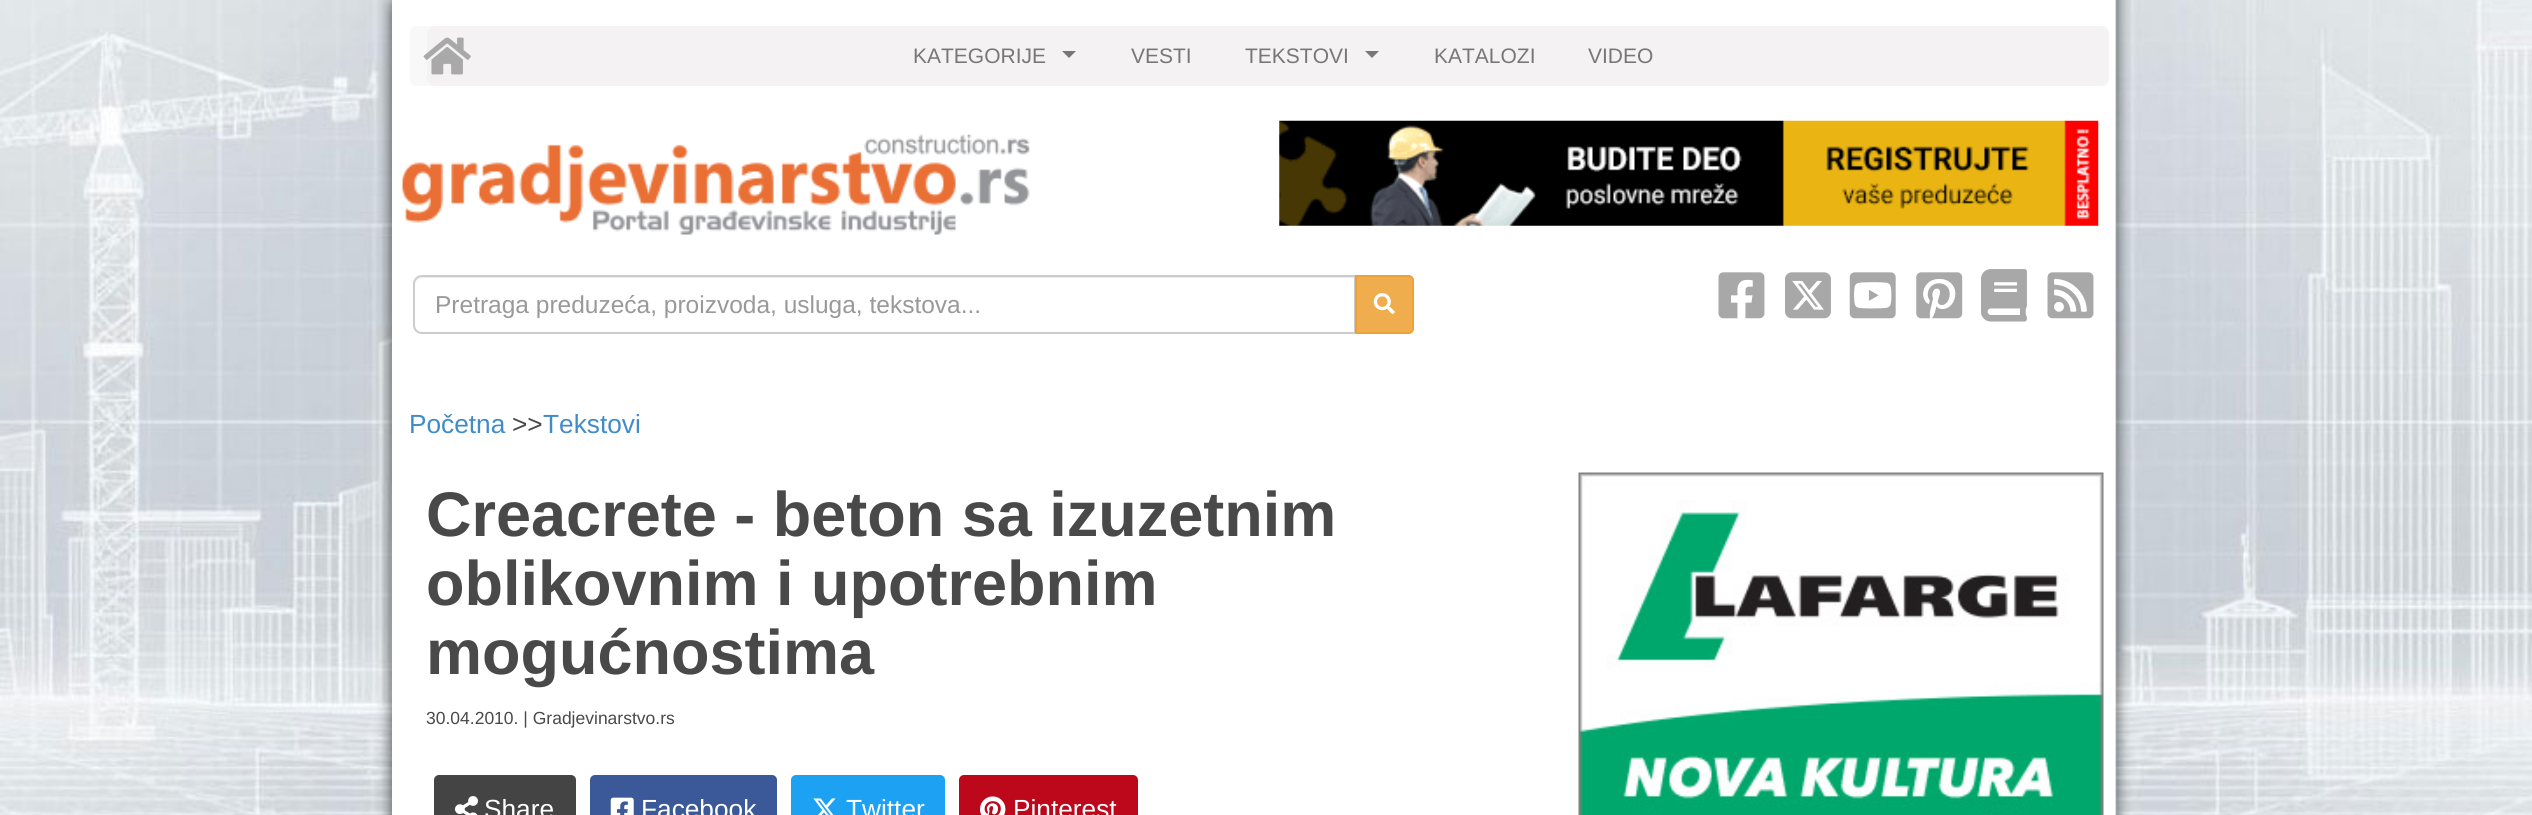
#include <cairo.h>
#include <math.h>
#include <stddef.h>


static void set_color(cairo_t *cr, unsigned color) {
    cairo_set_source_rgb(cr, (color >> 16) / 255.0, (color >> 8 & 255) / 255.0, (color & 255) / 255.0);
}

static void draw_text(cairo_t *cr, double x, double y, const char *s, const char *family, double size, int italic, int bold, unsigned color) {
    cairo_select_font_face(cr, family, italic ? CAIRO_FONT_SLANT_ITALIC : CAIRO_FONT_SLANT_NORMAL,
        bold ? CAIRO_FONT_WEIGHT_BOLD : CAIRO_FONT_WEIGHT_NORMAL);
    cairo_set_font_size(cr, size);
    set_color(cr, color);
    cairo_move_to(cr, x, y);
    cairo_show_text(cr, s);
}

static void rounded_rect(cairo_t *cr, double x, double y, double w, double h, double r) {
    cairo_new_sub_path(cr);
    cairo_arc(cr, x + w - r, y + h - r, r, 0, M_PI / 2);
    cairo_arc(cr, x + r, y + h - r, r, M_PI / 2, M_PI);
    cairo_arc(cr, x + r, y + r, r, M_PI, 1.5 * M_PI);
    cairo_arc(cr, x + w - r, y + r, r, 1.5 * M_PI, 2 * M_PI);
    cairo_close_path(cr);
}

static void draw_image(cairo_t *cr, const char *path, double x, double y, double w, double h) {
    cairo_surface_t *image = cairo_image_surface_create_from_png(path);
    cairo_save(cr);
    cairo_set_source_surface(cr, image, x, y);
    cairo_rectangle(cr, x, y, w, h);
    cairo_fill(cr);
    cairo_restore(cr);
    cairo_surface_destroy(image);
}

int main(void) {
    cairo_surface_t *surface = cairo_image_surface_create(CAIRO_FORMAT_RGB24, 2532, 815);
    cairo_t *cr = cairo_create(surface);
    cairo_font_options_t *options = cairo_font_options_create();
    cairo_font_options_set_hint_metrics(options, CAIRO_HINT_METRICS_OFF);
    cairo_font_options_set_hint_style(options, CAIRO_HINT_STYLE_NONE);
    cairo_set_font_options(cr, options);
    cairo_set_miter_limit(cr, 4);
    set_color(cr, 0xFFFFFF);
    cairo_paint(cr);
    draw_image(cr, "assets/img1.png", 0, 0, 392, 815);
    set_color(cr, 0xF8F8F8);
    rounded_rect(cr, 410, 26, 1699, 60, 7);
    cairo_fill(cr);
    set_color(cr, 0xF4F2F2);
    rounded_rect(cr, 427, 26, 1682, 60, 9);
    cairo_fill(cr);
    draw_image(cr, "assets/img2.png", 423, 37, 48, 38);
    draw_text(cr, 913, 63, "KATEGORIJE", "Liberation Sans", 21, 0, 0, 0x777777);
    cairo_new_path(cr);
    cairo_move_to(cr, 1062, 51);
    cairo_line_to(cr, 1076, 51);
    cairo_line_to(cr, 1069, 58);
    cairo_close_path(cr);
    cairo_fill(cr);
    draw_text(cr, 1131, 63, "VESTI", "Liberation Sans", 21, 0, 0, 0x777777);
    draw_text(cr, 1245, 63, "TEKSTOVI", "Liberation Sans", 21, 0, 0, 0x777777);
    cairo_new_path(cr);
    cairo_move_to(cr, 1365, 51);
    cairo_line_to(cr, 1379, 51);
    cairo_line_to(cr, 1372, 58);
    cairo_close_path(cr);
    cairo_fill(cr);
    draw_text(cr, 1434, 63, "KATALOZI", "Liberation Sans", 21, 0, 0, 0x777777);
    draw_text(cr, 1588, 63, "VIDEO", "Liberation Sans", 21, 0, 0, 0x777777);
    draw_image(cr, "assets/img3.png", 402, 134, 628, 101);
    draw_image(cr, "assets/img4.png", 1279, 120, 820, 106);
    set_color(cr, 0xECECEC);
    cairo_new_path(cr);
    cairo_move_to(cr, 422, 278);
    cairo_line_to(cr, 1354, 278);
    cairo_line_to(cr, 1354, 333);
    cairo_line_to(cr, 1355, 333);
    cairo_line_to(cr, 1355, 277);
    cairo_line_to(cr, 422, 277);
    cairo_curve_to(cr, 418, 277, 415, 280, 415, 284);
    cairo_line_to(cr, 415, 285);
    cairo_curve_to(cr, 415, 281, 418, 278, 422, 278);
    cairo_close_path(cr);
    cairo_fill(cr);
    cairo_new_path(cr);
    cairo_move_to(cr, 422, 276);
    cairo_line_to(cr, 1355, 276);
    cairo_line_to(cr, 1355, 333);
    cairo_line_to(cr, 422, 333);
    cairo_curve_to(cr, 417.5, 333, 414, 329.5, 414, 325);
    cairo_line_to(cr, 414, 284);
    cairo_curve_to(cr, 414, 279.5, 417.5, 276, 422, 276);
    cairo_close_path(cr);
    set_color(cr, 0xCCCCCC);
    cairo_stroke(cr);
    draw_text(cr, 435, 313, "Pretraga preduzeća, proizvoda, usluga, tekstova...", "Liberation Sans", 24.5, 0, 0, 0x999999);
    set_color(cr, 0xF0AD4E);
    cairo_new_path(cr);
    cairo_move_to(cr, 1356, 276);
    cairo_line_to(cr, 1409, 276);
    cairo_curve_to(cr, 1411, 276, 1413, 278, 1413, 280);
    cairo_line_to(cr, 1413, 329);
    cairo_curve_to(cr, 1413, 331, 1411, 333, 1409, 333);
    cairo_line_to(cr, 1356, 333);
    cairo_close_path(cr);
    cairo_fill_preserve(cr);
    set_color(cr, 0xEEA236);
    cairo_stroke(cr);
    draw_image(cr, "assets/img5.png", 1373, 293, 22, 22);
    draw_image(cr, "assets/img6.png", 1718, 272, 47, 47);
    draw_image(cr, "assets/img7.png", 1785, 272, 46, 47);
    draw_image(cr, "assets/img8.png", 1849, 272, 47, 47);
    draw_image(cr, "assets/img9.png", 1916, 272, 47, 47);
    draw_image(cr, "assets/img10.png", 1981, 269, 46, 53);
    draw_image(cr, "assets/img11.png", 2047, 272, 47, 47);
    draw_text(cr, 409, 433, "Početna", "Liberation Sans", 26.25, 0, 0, 0x428BCA);
    draw_text(cr, 512, 433, ">>", "Liberation Sans", 26.25, 0, 0, 0x494949);
    draw_text(cr, 543, 433, "Tekstovi", "Liberation Sans", 26.25, 0, 0, 0x428BCA);
    draw_text(cr, 426, 536, "Creacrete - beton sa izuzetnim", "Liberation Sans", 63, 0, 1, 0x494949);
    draw_text(cr, 426, 605, "oblikovnim i upotrebnim", "Liberation Sans", 63, 0, 1, 0x494949);
    draw_text(cr, 426, 674, "mogućnostima", "Liberation Sans", 63, 0, 1, 0x494949);
    draw_text(cr, 426, 724, "30.04.2010. | Gradjevinarstvo.rs", "Liberation Sans", 17.5, 0, 0, 0x494949);
    set_color(cr, 0x444444);
    rounded_rect(cr, 434, 775, 142, 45, 5);
    cairo_fill(cr);
    draw_image(cr, "assets/img12.png", 455, 796, 23, 19);
    draw_text(cr, 484, 818, "Share", "Liberation Sans", 26.25, 0, 0, 0xFFFFFF);
    set_color(cr, 0x3B5998);
    rounded_rect(cr, 590, 775, 187, 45, 5);
    cairo_fill(cr);
    draw_image(cr, "assets/img13.png", 610, 797, 24, 18);
    draw_text(cr, 641, 818, "Facebook", "Liberation Sans", 26.25, 0, 0, 0xFFFFFF);
    set_color(cr, 0x1DA1F2);
    rounded_rect(cr, 791, 775, 154, 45, 5);
    cairo_fill(cr);
    draw_image(cr, "assets/img14.png", 813, 798, 23, 17);
    draw_text(cr, 846, 818, "Twitter", "Liberation Sans", 26.25, 0, 0, 0xFFFFFF);
    set_color(cr, 0xBD081C);
    rounded_rect(cr, 959, 775, 179, 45, 5);
    cairo_fill(cr);
    draw_image(cr, "assets/img15.png", 980, 796, 26, 19);
    draw_text(cr, 1013, 818, "Pinterest", "Liberation Sans", 26.25, 0, 0, 0xFFFFFF);
    draw_image(cr, "assets/img16.png", 1578, 472, 526, 343);
    draw_image(cr, "assets/img17.png", 2115, 0, 417, 815);
    cairo_surface_write_to_png(surface, "output.png");
    cairo_font_options_destroy(options);
    cairo_destroy(cr);
    cairo_surface_destroy(surface);
    return 0;
}
